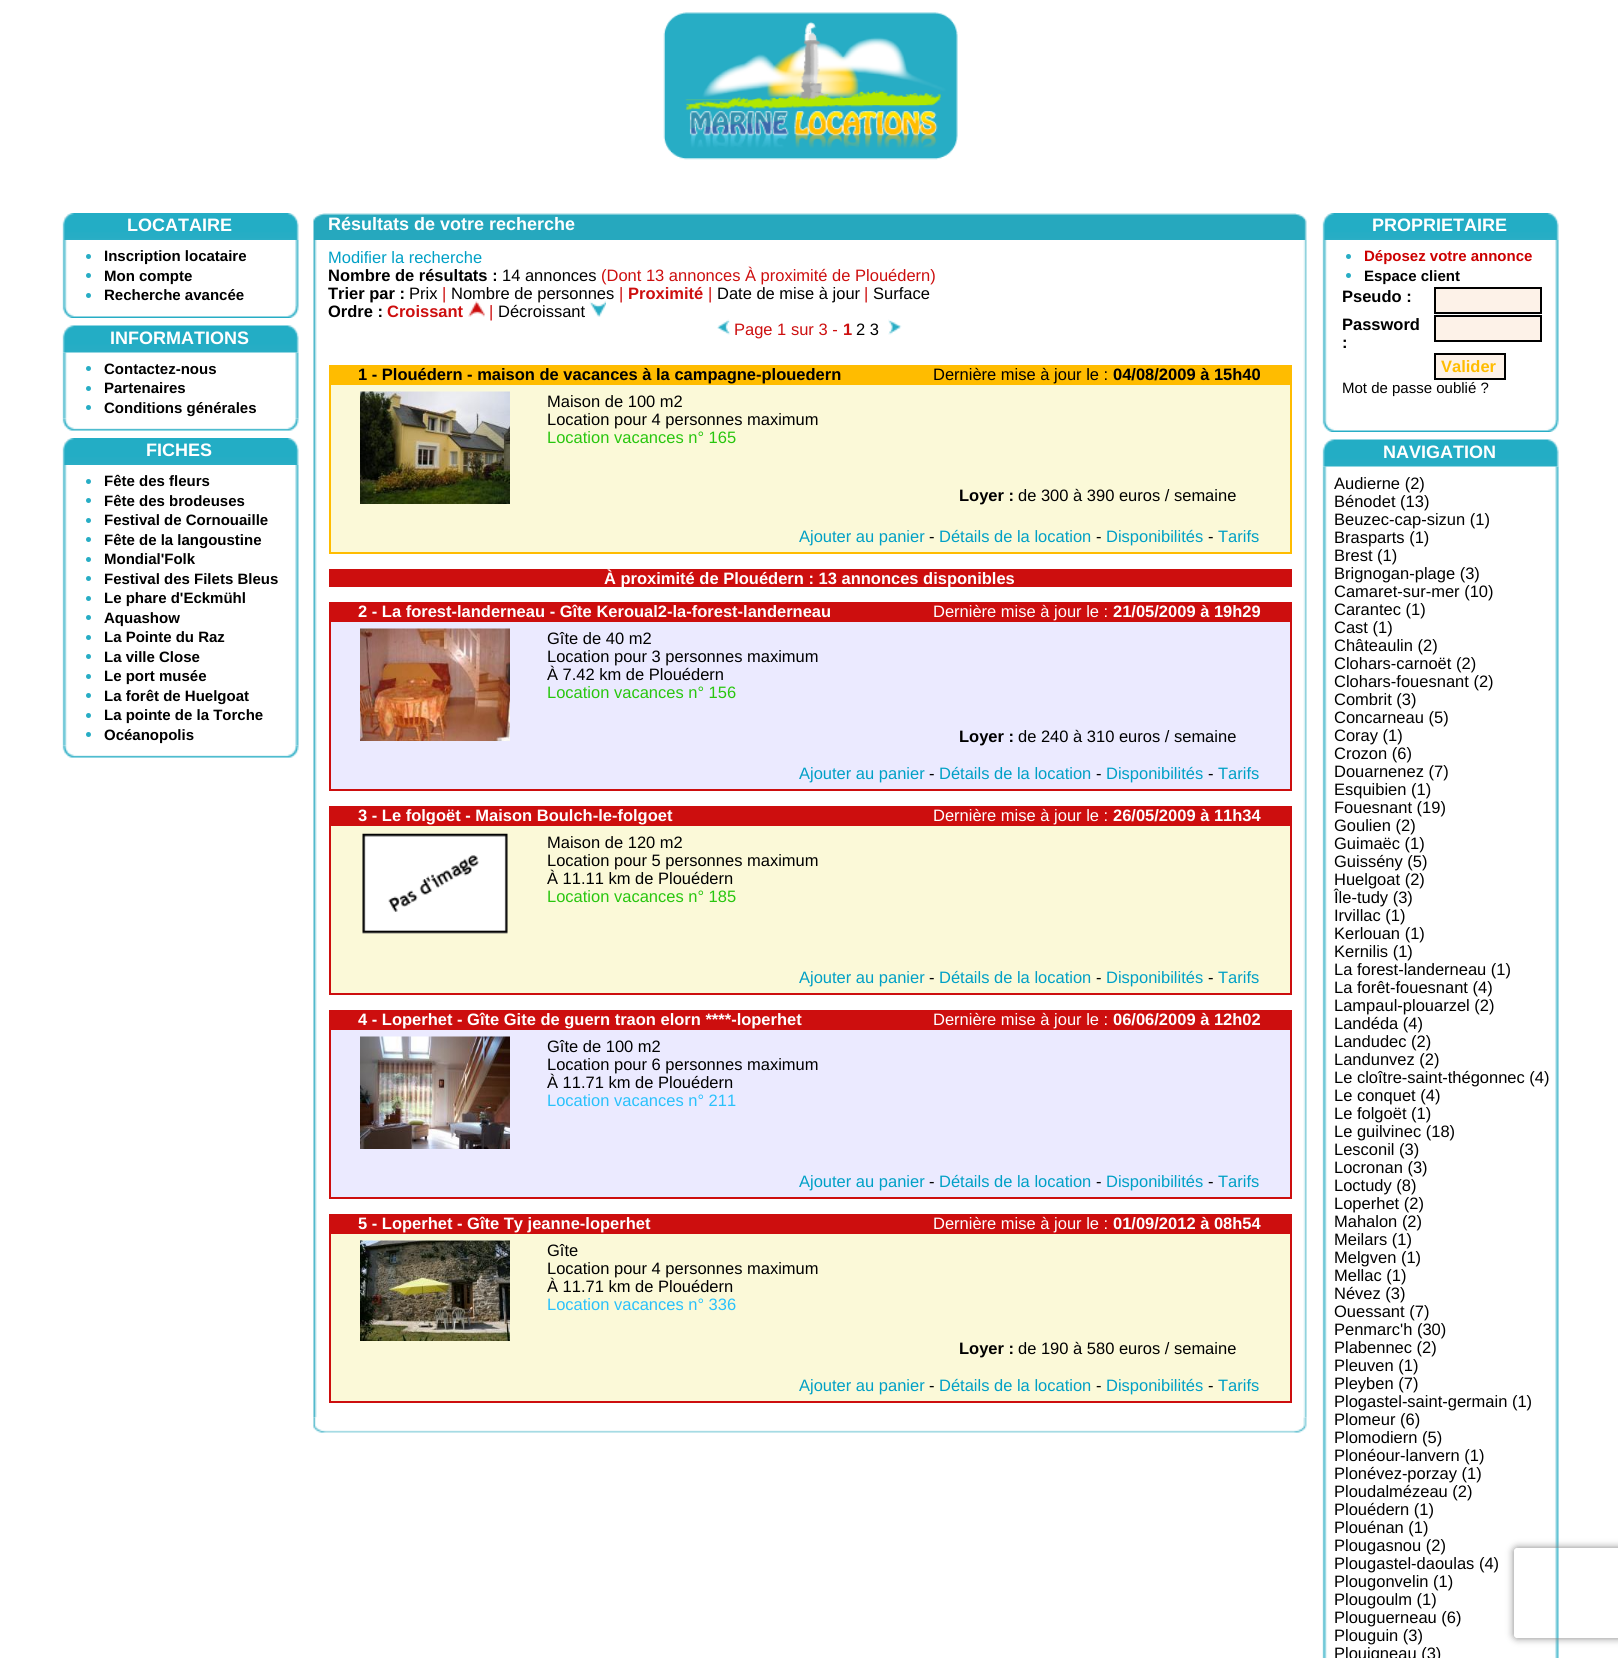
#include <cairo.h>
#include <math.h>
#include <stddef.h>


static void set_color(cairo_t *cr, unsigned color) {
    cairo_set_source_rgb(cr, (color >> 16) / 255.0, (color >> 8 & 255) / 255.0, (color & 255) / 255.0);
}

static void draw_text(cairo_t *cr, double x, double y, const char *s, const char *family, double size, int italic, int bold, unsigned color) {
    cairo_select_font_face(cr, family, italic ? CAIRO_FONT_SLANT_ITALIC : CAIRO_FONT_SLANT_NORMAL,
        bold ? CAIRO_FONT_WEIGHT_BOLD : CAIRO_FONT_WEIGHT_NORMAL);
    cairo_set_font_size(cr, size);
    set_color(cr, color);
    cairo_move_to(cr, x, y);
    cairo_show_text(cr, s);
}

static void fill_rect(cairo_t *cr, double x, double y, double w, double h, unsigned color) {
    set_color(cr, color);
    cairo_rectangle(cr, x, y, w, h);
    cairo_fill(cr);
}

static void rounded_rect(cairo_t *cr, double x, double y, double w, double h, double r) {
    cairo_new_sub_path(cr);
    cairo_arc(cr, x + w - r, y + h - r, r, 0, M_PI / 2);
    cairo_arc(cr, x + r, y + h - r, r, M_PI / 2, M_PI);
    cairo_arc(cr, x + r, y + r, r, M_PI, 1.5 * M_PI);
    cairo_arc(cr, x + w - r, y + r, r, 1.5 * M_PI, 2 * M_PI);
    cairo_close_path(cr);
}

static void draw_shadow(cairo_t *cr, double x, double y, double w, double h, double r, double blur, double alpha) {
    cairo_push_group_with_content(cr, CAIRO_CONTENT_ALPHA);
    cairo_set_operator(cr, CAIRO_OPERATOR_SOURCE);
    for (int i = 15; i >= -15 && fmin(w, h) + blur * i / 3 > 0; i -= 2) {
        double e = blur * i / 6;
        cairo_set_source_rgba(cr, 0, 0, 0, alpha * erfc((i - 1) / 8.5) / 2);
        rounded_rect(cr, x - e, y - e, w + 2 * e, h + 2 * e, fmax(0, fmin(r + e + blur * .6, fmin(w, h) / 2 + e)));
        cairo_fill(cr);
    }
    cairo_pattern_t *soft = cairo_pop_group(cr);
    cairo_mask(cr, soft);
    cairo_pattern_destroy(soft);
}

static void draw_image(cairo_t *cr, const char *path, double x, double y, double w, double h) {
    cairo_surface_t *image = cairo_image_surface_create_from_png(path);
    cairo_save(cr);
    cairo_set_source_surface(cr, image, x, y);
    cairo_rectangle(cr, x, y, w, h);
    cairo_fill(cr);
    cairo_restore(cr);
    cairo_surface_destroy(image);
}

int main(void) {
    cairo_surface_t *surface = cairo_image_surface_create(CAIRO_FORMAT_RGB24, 1618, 1658);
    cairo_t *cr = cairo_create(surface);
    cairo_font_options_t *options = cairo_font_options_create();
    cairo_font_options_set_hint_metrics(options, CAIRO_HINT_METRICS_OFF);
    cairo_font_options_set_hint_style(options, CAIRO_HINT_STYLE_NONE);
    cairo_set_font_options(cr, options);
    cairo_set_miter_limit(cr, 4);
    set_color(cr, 0xFFFFFF);
    cairo_paint(cr);
    draw_image(cr, "assets/img1.png", 663, 12, 295, 148);
    draw_image(cr, "assets/img2.png", 62, 213, 237, 27);
    draw_text(cr, 127, 231, "LOCATAIRE", "Liberation Sans", 18, 0, 1, 0xFFFFFF);
    draw_image(cr, "assets/img3.png", 62, 240, 237, 66);
    set_color(cr, 0x27ADC5);
    cairo_arc(cr, 88.5, 256.5, 2.5, 0, 2 * M_PI);
    cairo_fill(cr);
    draw_text(cr, 104, 261, "Inscription locataire", "Liberation Sans", 15, 0, 1, 0x000000);
    set_color(cr, 0x27ADC5);
    cairo_new_path(cr);
    cairo_arc(cr, 88.5, 275.5, 2.5, 0, 2 * M_PI);
    cairo_fill(cr);
    draw_text(cr, 104, 281, "Mon compte", "Liberation Sans", 15, 0, 1, 0x000000);
    set_color(cr, 0x27ADC5);
    cairo_new_path(cr);
    cairo_arc(cr, 88.5, 295.5, 2.5, 0, 2 * M_PI);
    cairo_fill(cr);
    draw_text(cr, 104, 300, "Recherche avancée", "Liberation Sans", 15, 0, 1, 0x000000);
    draw_image(cr, "assets/img4.png", 62, 306, 237, 12);
    draw_image(cr, "assets/img6.png", 62, 352, 237, 67);
    draw_image(cr, "assets/img5.png", 62, 325, 237, 28);
    draw_text(cr, 110, 344, "INFORMATIONS", "Liberation Sans", 18, 0, 1, 0xFFFFFF);
    set_color(cr, 0x27ADC5);
    cairo_new_path(cr);
    cairo_arc(cr, 88.5, 368.5, 2.5, 0, 2 * M_PI);
    cairo_fill(cr);
    draw_text(cr, 104, 374, "Contactez-nous", "Liberation Sans", 15, 0, 1, 0x000000);
    set_color(cr, 0x27ADC5);
    cairo_new_path(cr);
    cairo_arc(cr, 88.5, 388.5, 2.5, 0, 2 * M_PI);
    cairo_fill(cr);
    draw_text(cr, 104, 393, "Partenaires", "Liberation Sans", 15, 0, 1, 0x000000);
    set_color(cr, 0x27ADC5);
    cairo_new_path(cr);
    cairo_arc(cr, 88.5, 407.5, 2.5, 0, 2 * M_PI);
    cairo_fill(cr);
    draw_text(cr, 104, 413, "Conditions générales", "Liberation Sans", 15, 0, 1, 0x000000);
    draw_image(cr, "assets/img7.png", 62, 418, 237, 13);
    draw_image(cr, "assets/img2.png", 62, 438, 237, 27);
    draw_text(cr, 146, 456, "FICHES", "Liberation Sans", 18, 0, 1, 0xFFFFFF);
    draw_image(cr, "assets/img8.png", 62, 465, 237, 281);
    set_color(cr, 0x27ADC5);
    cairo_arc(cr, 88.5, 481.5, 2.5, 0, 2 * M_PI);
    cairo_fill(cr);
    draw_text(cr, 104, 486, "Fête des fleurs", "Liberation Sans", 15, 0, 1, 0x000000);
    set_color(cr, 0x27ADC5);
    cairo_new_path(cr);
    cairo_arc(cr, 88.5, 500.5, 2.5, 0, 2 * M_PI);
    cairo_fill(cr);
    draw_text(cr, 104, 506, "Fête des brodeuses", "Liberation Sans", 15, 0, 1, 0x000000);
    set_color(cr, 0x27ADC5);
    cairo_new_path(cr);
    cairo_arc(cr, 88.5, 520.5, 2.5, 0, 2 * M_PI);
    cairo_fill(cr);
    draw_text(cr, 104, 525, "Festival de Cornouaille", "Liberation Sans", 15, 0, 1, 0x000000);
    set_color(cr, 0x27ADC5);
    cairo_new_path(cr);
    cairo_arc(cr, 88.5, 539.5, 2.5, 0, 2 * M_PI);
    cairo_fill(cr);
    draw_text(cr, 104, 545, "Fête de la langoustine", "Liberation Sans", 15, 0, 1, 0x000000);
    set_color(cr, 0x27ADC5);
    cairo_new_path(cr);
    cairo_arc(cr, 88.5, 559.5, 2.5, 0, 2 * M_PI);
    cairo_fill(cr);
    draw_text(cr, 104, 564, "Mondial'Folk", "Liberation Sans", 15, 0, 1, 0x000000);
    set_color(cr, 0x27ADC5);
    cairo_new_path(cr);
    cairo_arc(cr, 88.5, 578.5, 2.5, 0, 2 * M_PI);
    cairo_fill(cr);
    draw_text(cr, 104, 584, "Festival des Filets Bleus", "Liberation Sans", 15, 0, 1, 0x000000);
    set_color(cr, 0x27ADC5);
    cairo_new_path(cr);
    cairo_arc(cr, 88.5, 598.5, 2.5, 0, 2 * M_PI);
    cairo_fill(cr);
    draw_text(cr, 104, 603, "Le phare d'Eckmühl", "Liberation Sans", 15, 0, 1, 0x000000);
    set_color(cr, 0x27ADC5);
    cairo_new_path(cr);
    cairo_arc(cr, 88.5, 617.5, 2.5, 0, 2 * M_PI);
    cairo_fill(cr);
    draw_text(cr, 104, 623, "Aquashow", "Liberation Sans", 15, 0, 1, 0x000000);
    set_color(cr, 0x27ADC5);
    cairo_new_path(cr);
    cairo_arc(cr, 88.5, 637.5, 2.5, 0, 2 * M_PI);
    cairo_fill(cr);
    draw_text(cr, 104, 642, "La Pointe du Raz", "Liberation Sans", 15, 0, 1, 0x000000);
    set_color(cr, 0x27ADC5);
    cairo_new_path(cr);
    cairo_arc(cr, 88.5, 656.5, 2.5, 0, 2 * M_PI);
    cairo_fill(cr);
    draw_text(cr, 104, 662, "La ville Close", "Liberation Sans", 15, 0, 1, 0x000000);
    set_color(cr, 0x27ADC5);
    cairo_new_path(cr);
    cairo_arc(cr, 88.5, 676.5, 2.5, 0, 2 * M_PI);
    cairo_fill(cr);
    draw_text(cr, 104, 681, "Le port musée", "Liberation Sans", 15, 0, 1, 0x000000);
    set_color(cr, 0x27ADC5);
    cairo_new_path(cr);
    cairo_arc(cr, 88.5, 695.5, 2.5, 0, 2 * M_PI);
    cairo_fill(cr);
    draw_text(cr, 104, 701, "La forêt de Huelgoat", "Liberation Sans", 15, 0, 1, 0x000000);
    set_color(cr, 0x27ADC5);
    cairo_new_path(cr);
    cairo_arc(cr, 88.5, 715.5, 2.5, 0, 2 * M_PI);
    cairo_fill(cr);
    draw_text(cr, 104, 720, "La pointe de la Torche", "Liberation Sans", 15, 0, 1, 0x000000);
    set_color(cr, 0x27ADC5);
    cairo_new_path(cr);
    cairo_arc(cr, 88.5, 734.5, 2.5, 0, 2 * M_PI);
    cairo_fill(cr);
    draw_text(cr, 104, 740, "Océanopolis", "Liberation Sans", 15, 0, 1, 0x000000);
    draw_image(cr, "assets/img7.png", 62, 745, 237, 13);
    draw_image(cr, "assets/img9.png", 313, 213, 994, 27);
    draw_text(cr, 328, 230, "Résultats de votre recherche", "Liberation Sans", 18, 0, 1, 0xFFFFFF);
    draw_image(cr, "assets/img10.png", 313, 240, 994, 1178);
    draw_text(cr, 328, 263, "Modifier la recherche", "Liberation Sans", 16.5, 0, 0, 0x00A0C6);
    draw_text(cr, 328, 281, "Nombre de résultats :", "Liberation Sans", 16.5, 0, 1, 0x000000);
    draw_text(cr, 502, 281, "14 annonces", "Liberation Sans", 16.5, 0, 0, 0x000000);
    draw_text(cr, 601, 281, "(Dont 13 annonces À proximité de Plouédern)", "Liberation Sans", 16.5, 0, 0, 0xCD0E0E);
    draw_text(cr, 328, 299, "Trier par :", "Liberation Sans", 16.5, 0, 1, 0x000000);
    draw_text(cr, 409, 299, "Prix", "Liberation Sans", 16.5, 0, 0, 0x000000);
    draw_text(cr, 442, 299, "|", "Liberation Sans", 16.5, 0, 0, 0xCD0E0E);
    draw_text(cr, 451, 299, "Nombre de personnes", "Liberation Sans", 16.5, 0, 0, 0x000000);
    draw_text(cr, 619, 299, "|", "Liberation Sans", 16.5, 0, 0, 0xCD0E0E);
    draw_text(cr, 628, 299, "Proximité", "Liberation Sans", 16.5, 0, 1, 0xCD0E0E);
    draw_text(cr, 708, 299, "|", "Liberation Sans", 16.5, 0, 0, 0xCD0E0E);
    draw_text(cr, 717, 299, "Date de mise à jour", "Liberation Sans", 16.5, 0, 0, 0x000000);
    draw_text(cr, 864, 299, "|", "Liberation Sans", 16.5, 0, 0, 0xCD0E0E);
    draw_text(cr, 873, 299, "Surface", "Liberation Sans", 16.5, 0, 0, 0x000000);
    draw_text(cr, 328, 317, "Ordre :", "Liberation Sans", 16.5, 0, 1, 0x000000);
    draw_text(cr, 387, 317, "Croissant", "Liberation Sans", 16.5, 0, 1, 0xCD0E0E);
    draw_image(cr, "assets/img11.png", 468, 301, 17, 16);
    draw_text(cr, 489, 317, "|", "Liberation Sans", 16.5, 0, 0, 0xCD0E0E);
    draw_text(cr, 498, 317, "Décroissant", "Liberation Sans", 16.5, 0, 0, 0x000000);
    draw_image(cr, "assets/img12.png", 589, 301, 17, 16);
    draw_image(cr, "assets/img13.png", 717, 319, 14, 16);
    draw_text(cr, 734, 335, "Page 1 sur 3 -", "Liberation Sans", 16.5, 0, 0, 0xCD0E0E);
    draw_text(cr, 843, 335, "1", "Liberation Sans", 16.5, 0, 1, 0xCD0E0E);
    draw_text(cr, 856, 335, "2 3", "Liberation Sans", 16.5, 0, 0, 0x000000);
    draw_image(cr, "assets/img14.png", 888, 319, 14, 16);
    fill_rect(cr, 329, 365, 963, 18, 0xFFBC00);
    set_color(cr, 0xFBF9D8);
    cairo_rectangle(cr, 330, 384, 961, 169);
    cairo_fill_preserve(cr);
    set_color(cr, 0xFFBC00);
    cairo_stroke(cr);
    draw_text(cr, 358, 380, "1 - Plouédern - maison de vacances à la campagne-plouedern", "Liberation Sans", 16.5, 0, 1, 0x000000);
    draw_text(cr, 933, 380, "Dernière mise à jour le :", "Liberation Sans", 16.5, 0, 0, 0x000000);
    draw_text(cr, 1113, 380, "04/08/2009 à 15h40", "Liberation Sans", 16.5, 0, 1, 0x000000);
    draw_image(cr, "assets/img15.png", 360, 391, 150, 113);
    draw_text(cr, 547, 407, "Maison de 100 m2", "Liberation Sans", 16.5, 0, 0, 0x000000);
    draw_text(cr, 547, 425, "Location pour 4 personnes maximum", "Liberation Sans", 16.5, 0, 0, 0x000000);
    draw_text(cr, 547, 443, "Location vacances n° 165", "Liberation Sans", 16.5, 0, 0, 0x28C60E);
    draw_text(cr, 959, 501, "Loyer :", "Liberation Sans", 16.5, 0, 1, 0x000000);
    draw_text(cr, 1018, 501, "de 300 à 390 euros / semaine", "Liberation Sans", 16.5, 0, 0, 0x000000);
    draw_text(cr, 799, 542, "Ajouter au panier", "Liberation Sans", 16.5, 0, 0, 0x00A0C6);
    draw_text(cr, 929, 542, "-", "Liberation Sans", 16.5, 0, 0, 0x000000);
    draw_text(cr, 939, 542, "Détails de la location", "Liberation Sans", 16.5, 0, 0, 0x00A0C6);
    draw_text(cr, 1096, 542, "-", "Liberation Sans", 16.5, 0, 0, 0x000000);
    draw_text(cr, 1106, 542, "Disponibilités", "Liberation Sans", 16.5, 0, 0, 0x00A0C6);
    draw_text(cr, 1208, 542, "-", "Liberation Sans", 16.5, 0, 0, 0x000000);
    draw_text(cr, 1218, 542, "Tarifs", "Liberation Sans", 16.5, 0, 0, 0x00A0C6);
    fill_rect(cr, 329, 569, 963, 18, 0xCD0E0E);
    draw_text(cr, 604, 584, "À proximité de Plouédern : 13 annonces disponibles", "Liberation Sans", 16.5, 0, 1, 0xFFFFFF);
    fill_rect(cr, 329, 602, 963, 18, 0xCD0E0E);
    draw_text(cr, 358, 617, "2 - La forest-landerneau - Gîte Keroual2-la-forest-landerneau", "Liberation Sans", 16.5, 0, 1, 0xFFFFFF);
    set_color(cr, 0xEBEAFF);
    cairo_rectangle(cr, 330, 621, 961, 169);
    cairo_fill_preserve(cr);
    set_color(cr, 0xCD0E0E);
    cairo_stroke(cr);
    draw_text(cr, 933, 617, "Dernière mise à jour le :", "Liberation Sans", 16.5, 0, 0, 0xFFFFFF);
    draw_text(cr, 1113, 617, "21/05/2009 à 19h29", "Liberation Sans", 16.5, 0, 1, 0xFFFFFF);
    draw_image(cr, "assets/img16.png", 360, 628, 150, 113);
    draw_text(cr, 547, 644, "Gîte de 40 m2", "Liberation Sans", 16.5, 0, 0, 0x000000);
    draw_text(cr, 547, 662, "Location pour 3 personnes maximum", "Liberation Sans", 16.5, 0, 0, 0x000000);
    draw_text(cr, 547, 680, "À 7.42 km de Plouédern", "Liberation Sans", 16.5, 0, 0, 0x000000);
    draw_text(cr, 547, 698, "Location vacances n° 156", "Liberation Sans", 16.5, 0, 0, 0x28C60E);
    draw_text(cr, 959, 742, "Loyer :", "Liberation Sans", 16.5, 0, 1, 0x000000);
    draw_text(cr, 1018, 742, "de 240 à 310 euros / semaine", "Liberation Sans", 16.5, 0, 0, 0x000000);
    draw_text(cr, 799, 779, "Ajouter au panier", "Liberation Sans", 16.5, 0, 0, 0x00A0C6);
    draw_text(cr, 929, 779, "-", "Liberation Sans", 16.5, 0, 0, 0x000000);
    draw_text(cr, 939, 779, "Détails de la location", "Liberation Sans", 16.5, 0, 0, 0x00A0C6);
    draw_text(cr, 1096, 779, "-", "Liberation Sans", 16.5, 0, 0, 0x000000);
    draw_text(cr, 1106, 779, "Disponibilités", "Liberation Sans", 16.5, 0, 0, 0x00A0C6);
    draw_text(cr, 1208, 779, "-", "Liberation Sans", 16.5, 0, 0, 0x000000);
    draw_text(cr, 1218, 779, "Tarifs", "Liberation Sans", 16.5, 0, 0, 0x00A0C6);
    fill_rect(cr, 329, 806, 963, 18, 0xCD0E0E);
    set_color(cr, 0xFBF9D8);
    cairo_rectangle(cr, 330, 825, 961, 169);
    cairo_fill_preserve(cr);
    set_color(cr, 0xCD0E0E);
    cairo_stroke(cr);
    draw_text(cr, 358, 821, "3 - Le folgoët - Maison Boulch-le-folgoet", "Liberation Sans", 16.5, 0, 1, 0xFFFFFF);
    draw_text(cr, 933, 821, "Dernière mise à jour le :", "Liberation Sans", 16.5, 0, 0, 0xFFFFFF);
    draw_text(cr, 1113, 821, "26/05/2009 à 11h34", "Liberation Sans", 16.5, 0, 1, 0xFFFFFF);
    draw_image(cr, "assets/img17.png", 362, 833, 146, 101);
    draw_text(cr, 547, 848, "Maison de 120 m2", "Liberation Sans", 16.5, 0, 0, 0x000000);
    draw_text(cr, 547, 866, "Location pour 5 personnes maximum", "Liberation Sans", 16.5, 0, 0, 0x000000);
    draw_text(cr, 547, 884, "À 11.11 km de Plouédern", "Liberation Sans", 16.5, 0, 0, 0x000000);
    draw_text(cr, 547, 902, "Location vacances n° 185", "Liberation Sans", 16.5, 0, 0, 0x28C60E);
    draw_text(cr, 799, 983, "Ajouter au panier", "Liberation Sans", 16.5, 0, 0, 0x00A0C6);
    draw_text(cr, 929, 983, "-", "Liberation Sans", 16.5, 0, 0, 0x000000);
    draw_text(cr, 939, 983, "Détails de la location", "Liberation Sans", 16.5, 0, 0, 0x00A0C6);
    draw_text(cr, 1096, 983, "-", "Liberation Sans", 16.5, 0, 0, 0x000000);
    draw_text(cr, 1106, 983, "Disponibilités", "Liberation Sans", 16.5, 0, 0, 0x00A0C6);
    draw_text(cr, 1208, 983, "-", "Liberation Sans", 16.5, 0, 0, 0x000000);
    draw_text(cr, 1218, 983, "Tarifs", "Liberation Sans", 16.5, 0, 0, 0x00A0C6);
    fill_rect(cr, 329, 1010, 963, 18, 0xCD0E0E);
    set_color(cr, 0xEBEAFF);
    cairo_rectangle(cr, 330, 1029, 961, 169);
    cairo_fill_preserve(cr);
    set_color(cr, 0xCD0E0E);
    cairo_stroke(cr);
    draw_text(cr, 358, 1025, "4 - Loperhet - Gîte Gite de guern traon elorn ****-loperhet", "Liberation Sans", 16.5, 0, 1, 0xFFFFFF);
    draw_text(cr, 933, 1025, "Dernière mise à jour le :", "Liberation Sans", 16.5, 0, 0, 0xFFFFFF);
    draw_text(cr, 1113, 1025, "06/06/2009 à 12h02", "Liberation Sans", 16.5, 0, 1, 0xFFFFFF);
    draw_image(cr, "assets/img18.png", 360, 1036, 150, 113);
    draw_text(cr, 547, 1052, "Gîte de 100 m2", "Liberation Sans", 16.5, 0, 0, 0x000000);
    draw_text(cr, 547, 1070, "Location pour 6 personnes maximum", "Liberation Sans", 16.5, 0, 0, 0x000000);
    draw_text(cr, 547, 1088, "À 11.71 km de Plouédern", "Liberation Sans", 16.5, 0, 0, 0x000000);
    draw_text(cr, 547, 1106, "Location vacances n° 211", "Liberation Sans", 16.5, 0, 0, 0x29C1FB);
    draw_text(cr, 799, 1187, "Ajouter au panier", "Liberation Sans", 16.5, 0, 0, 0x00A0C6);
    draw_text(cr, 929, 1187, "-", "Liberation Sans", 16.5, 0, 0, 0x000000);
    draw_text(cr, 939, 1187, "Détails de la location", "Liberation Sans", 16.5, 0, 0, 0x00A0C6);
    draw_text(cr, 1096, 1187, "-", "Liberation Sans", 16.5, 0, 0, 0x000000);
    draw_text(cr, 1106, 1187, "Disponibilités", "Liberation Sans", 16.5, 0, 0, 0x00A0C6);
    draw_text(cr, 1208, 1187, "-", "Liberation Sans", 16.5, 0, 0, 0x000000);
    draw_text(cr, 1218, 1187, "Tarifs", "Liberation Sans", 16.5, 0, 0, 0x00A0C6);
    fill_rect(cr, 329, 1214, 963, 18, 0xCD0E0E);
    set_color(cr, 0xFBF9D8);
    cairo_rectangle(cr, 330, 1233, 961, 169);
    cairo_fill_preserve(cr);
    set_color(cr, 0xCD0E0E);
    cairo_stroke(cr);
    draw_text(cr, 358, 1229, "5 - Loperhet - Gîte Ty jeanne-loperhet", "Liberation Sans", 16.5, 0, 1, 0xFFFFFF);
    draw_text(cr, 933, 1229, "Dernière mise à jour le :", "Liberation Sans", 16.5, 0, 0, 0xFFFFFF);
    draw_text(cr, 1113, 1229, "01/09/2012 à 08h54", "Liberation Sans", 16.5, 0, 1, 0xFFFFFF);
    draw_image(cr, "assets/img19.png", 360, 1240, 150, 101);
    draw_text(cr, 547, 1256, "Gîte", "Liberation Sans", 16.5, 0, 0, 0x000000);
    draw_text(cr, 547, 1274, "Location pour 4 personnes maximum", "Liberation Sans", 16.5, 0, 0, 0x000000);
    draw_text(cr, 547, 1292, "À 11.71 km de Plouédern", "Liberation Sans", 16.5, 0, 0, 0x000000);
    draw_text(cr, 547, 1310, "Location vacances n° 336", "Liberation Sans", 16.5, 0, 0, 0x29C1FB);
    draw_text(cr, 959, 1354, "Loyer :", "Liberation Sans", 16.5, 0, 1, 0x000000);
    draw_text(cr, 1018, 1354, "de 190 à 580 euros / semaine", "Liberation Sans", 16.5, 0, 0, 0x000000);
    draw_text(cr, 799, 1391, "Ajouter au panier", "Liberation Sans", 16.5, 0, 0, 0x00A0C6);
    draw_text(cr, 929, 1391, "-", "Liberation Sans", 16.5, 0, 0, 0x000000);
    draw_text(cr, 939, 1391, "Détails de la location", "Liberation Sans", 16.5, 0, 0, 0x00A0C6);
    draw_text(cr, 1096, 1391, "-", "Liberation Sans", 16.5, 0, 0, 0x000000);
    draw_text(cr, 1106, 1391, "Disponibilités", "Liberation Sans", 16.5, 0, 0, 0x00A0C6);
    draw_text(cr, 1208, 1391, "-", "Liberation Sans", 16.5, 0, 0, 0x000000);
    draw_text(cr, 1218, 1391, "Tarifs", "Liberation Sans", 16.5, 0, 0, 0x00A0C6);
    draw_image(cr, "assets/img20.png", 313, 1417, 994, 16);
    draw_image(cr, "assets/img21.png", 1322, 213, 237, 27);
    draw_text(cr, 1372, 231, "PROPRIETAIRE", "Liberation Sans", 18, 0, 1, 0xFFFFFF);
    draw_image(cr, "assets/img22.png", 1322, 240, 237, 180);
    set_color(cr, 0x27ADC5);
    cairo_arc(cr, 1348.5, 256.5, 2.5, 0, 2 * M_PI);
    cairo_fill(cr);
    draw_text(cr, 1364, 261, "Déposez votre annonce", "Liberation Sans", 15, 0, 1, 0xCC0000);
    set_color(cr, 0x27ADC5);
    cairo_new_path(cr);
    cairo_arc(cr, 1348.5, 275.5, 2.5, 0, 2 * M_PI);
    cairo_fill(cr);
    draw_text(cr, 1364, 281, "Espace client", "Liberation Sans", 15, 0, 1, 0x000000);
    draw_text(cr, 1342, 302, "Pseudo :", "Liberation Sans", 16.5, 0, 1, 0x000000);
    set_color(cr, 0xFDF2E8);
    cairo_rectangle(cr, 1435, 288, 106, 25);
    cairo_fill_preserve(cr);
    set_color(cr, 0x000000);
    cairo_stroke(cr);
    draw_text(cr, 1342, 330, "Password", "Liberation Sans", 16.5, 0, 1, 0x000000);
    draw_text(cr, 1342, 348, ":", "Liberation Sans", 16.5, 0, 1, 0x000000);
    set_color(cr, 0xFDF2E8);
    cairo_rectangle(cr, 1435, 316, 106, 25);
    cairo_fill_preserve(cr);
    set_color(cr, 0x000000);
    cairo_stroke(cr);
    set_color(cr, 0xFDF2E8);
    cairo_rectangle(cr, 1435, 354, 70, 25);
    cairo_fill_preserve(cr);
    set_color(cr, 0x000000);
    cairo_stroke(cr);
    draw_text(cr, 1441, 372, "Valider", "Liberation Sans", 16.5, 0, 1, 0xFFBC00);
    draw_text(cr, 1342, 393, "Mot de passe oublié ?", "Liberation Sans", 15, 0, 0, 0x000000);
    draw_image(cr, "assets/img23.png", 1322, 420, 237, 12);
    draw_image(cr, "assets/img25.png", 1322, 466, 237, 1192);
    draw_image(cr, "assets/img24.png", 1322, 439, 237, 28);
    draw_text(cr, 1383, 458, "NAVIGATION", "Liberation Sans", 18, 0, 1, 0xFFFFFF);
    draw_text(cr, 1334, 489, "Audierne (2)", "Liberation Sans", 16.5, 0, 0, 0x000000);
    draw_text(cr, 1334, 507, "Bénodet (13)", "Liberation Sans", 16.5, 0, 0, 0x000000);
    draw_text(cr, 1334, 525, "Beuzec-cap-sizun (1)", "Liberation Sans", 16.5, 0, 0, 0x000000);
    draw_text(cr, 1334, 543, "Brasparts (1)", "Liberation Sans", 16.5, 0, 0, 0x000000);
    draw_text(cr, 1334, 561, "Brest (1)", "Liberation Sans", 16.5, 0, 0, 0x000000);
    draw_text(cr, 1334, 579, "Brignogan-plage (3)", "Liberation Sans", 16.5, 0, 0, 0x000000);
    draw_text(cr, 1334, 597, "Camaret-sur-mer (10)", "Liberation Sans", 16.5, 0, 0, 0x000000);
    draw_text(cr, 1334, 615, "Carantec (1)", "Liberation Sans", 16.5, 0, 0, 0x000000);
    draw_text(cr, 1334, 633, "Cast (1)", "Liberation Sans", 16.5, 0, 0, 0x000000);
    draw_text(cr, 1334, 651, "Châteaulin (2)", "Liberation Sans", 16.5, 0, 0, 0x000000);
    draw_text(cr, 1334, 669, "Clohars-carnoët (2)", "Liberation Sans", 16.5, 0, 0, 0x000000);
    draw_text(cr, 1334, 687, "Clohars-fouesnant (2)", "Liberation Sans", 16.5, 0, 0, 0x000000);
    draw_text(cr, 1334, 705, "Combrit (3)", "Liberation Sans", 16.5, 0, 0, 0x000000);
    draw_text(cr, 1334, 723, "Concarneau (5)", "Liberation Sans", 16.5, 0, 0, 0x000000);
    draw_text(cr, 1334, 741, "Coray (1)", "Liberation Sans", 16.5, 0, 0, 0x000000);
    draw_text(cr, 1334, 759, "Crozon (6)", "Liberation Sans", 16.5, 0, 0, 0x000000);
    draw_text(cr, 1334, 777, "Douarnenez (7)", "Liberation Sans", 16.5, 0, 0, 0x000000);
    draw_text(cr, 1334, 795, "Esquibien (1)", "Liberation Sans", 16.5, 0, 0, 0x000000);
    draw_text(cr, 1334, 813, "Fouesnant (19)", "Liberation Sans", 16.5, 0, 0, 0x000000);
    draw_text(cr, 1334, 831, "Goulien (2)", "Liberation Sans", 16.5, 0, 0, 0x000000);
    draw_text(cr, 1334, 849, "Guimaëc (1)", "Liberation Sans", 16.5, 0, 0, 0x000000);
    draw_text(cr, 1334, 867, "Guissény (5)", "Liberation Sans", 16.5, 0, 0, 0x000000);
    draw_text(cr, 1334, 885, "Huelgoat (2)", "Liberation Sans", 16.5, 0, 0, 0x000000);
    draw_text(cr, 1334, 903, "Île-tudy (3)", "Liberation Sans", 16.5, 0, 0, 0x000000);
    draw_text(cr, 1334, 921, "Irvillac (1)", "Liberation Sans", 16.5, 0, 0, 0x000000);
    draw_text(cr, 1334, 939, "Kerlouan (1)", "Liberation Sans", 16.5, 0, 0, 0x000000);
    draw_text(cr, 1334, 957, "Kernilis (1)", "Liberation Sans", 16.5, 0, 0, 0x000000);
    draw_text(cr, 1334, 975, "La forest-landerneau (1)", "Liberation Sans", 16.5, 0, 0, 0x000000);
    draw_text(cr, 1334, 993, "La forêt-fouesnant (4)", "Liberation Sans", 16.5, 0, 0, 0x000000);
    draw_text(cr, 1334, 1011, "Lampaul-plouarzel (2)", "Liberation Sans", 16.5, 0, 0, 0x000000);
    draw_text(cr, 1334, 1029, "Landéda (4)", "Liberation Sans", 16.5, 0, 0, 0x000000);
    draw_text(cr, 1334, 1047, "Landudec (2)", "Liberation Sans", 16.5, 0, 0, 0x000000);
    draw_text(cr, 1334, 1065, "Landunvez (2)", "Liberation Sans", 16.5, 0, 0, 0x000000);
    draw_text(cr, 1334, 1083, "Le cloître-saint-thégonnec (4)", "Liberation Sans", 16.5, 0, 0, 0x000000);
    draw_text(cr, 1334, 1101, "Le conquet (4)", "Liberation Sans", 16.5, 0, 0, 0x000000);
    draw_text(cr, 1334, 1119, "Le folgoët (1)", "Liberation Sans", 16.5, 0, 0, 0x000000);
    draw_text(cr, 1334, 1137, "Le guilvinec (18)", "Liberation Sans", 16.5, 0, 0, 0x000000);
    draw_text(cr, 1334, 1155, "Lesconil (3)", "Liberation Sans", 16.5, 0, 0, 0x000000);
    draw_text(cr, 1334, 1173, "Locronan (3)", "Liberation Sans", 16.5, 0, 0, 0x000000);
    draw_text(cr, 1334, 1191, "Loctudy (8)", "Liberation Sans", 16.5, 0, 0, 0x000000);
    draw_text(cr, 1334, 1209, "Loperhet (2)", "Liberation Sans", 16.5, 0, 0, 0x000000);
    draw_text(cr, 1334, 1227, "Mahalon (2)", "Liberation Sans", 16.5, 0, 0, 0x000000);
    draw_text(cr, 1334, 1245, "Meilars (1)", "Liberation Sans", 16.5, 0, 0, 0x000000);
    draw_text(cr, 1334, 1263, "Melgven (1)", "Liberation Sans", 16.5, 0, 0, 0x000000);
    draw_text(cr, 1334, 1281, "Mellac (1)", "Liberation Sans", 16.5, 0, 0, 0x000000);
    draw_text(cr, 1334, 1299, "Névez (3)", "Liberation Sans", 16.5, 0, 0, 0x000000);
    draw_text(cr, 1334, 1317, "Ouessant (7)", "Liberation Sans", 16.5, 0, 0, 0x000000);
    draw_text(cr, 1334, 1335, "Penmarc'h (30)", "Liberation Sans", 16.5, 0, 0, 0x000000);
    draw_text(cr, 1334, 1353, "Plabennec (2)", "Liberation Sans", 16.5, 0, 0, 0x000000);
    draw_text(cr, 1334, 1371, "Pleuven (1)", "Liberation Sans", 16.5, 0, 0, 0x000000);
    draw_text(cr, 1334, 1389, "Pleyben (7)", "Liberation Sans", 16.5, 0, 0, 0x000000);
    draw_text(cr, 1334, 1407, "Plogastel-saint-germain (1)", "Liberation Sans", 16.5, 0, 0, 0x000000);
    draw_text(cr, 1334, 1425, "Plomeur (6)", "Liberation Sans", 16.5, 0, 0, 0x000000);
    draw_text(cr, 1334, 1443, "Plomodiern (5)", "Liberation Sans", 16.5, 0, 0, 0x000000);
    draw_text(cr, 1334, 1461, "Plonéour-lanvern (1)", "Liberation Sans", 16.5, 0, 0, 0x000000);
    draw_text(cr, 1334, 1479, "Plonévez-porzay (1)", "Liberation Sans", 16.5, 0, 0, 0x000000);
    draw_text(cr, 1334, 1497, "Ploudalmézeau (2)", "Liberation Sans", 16.5, 0, 0, 0x000000);
    draw_text(cr, 1334, 1515, "Plouédern (1)", "Liberation Sans", 16.5, 0, 0, 0x000000);
    draw_text(cr, 1334, 1533, "Plouénan (1)", "Liberation Sans", 16.5, 0, 0, 0x000000);
    draw_text(cr, 1334, 1551, "Plougasnou (2)", "Liberation Sans", 16.5, 0, 0, 0x000000);
    draw_text(cr, 1334, 1569, "Plougastel-daoulas (4)", "Liberation Sans", 16.5, 0, 0, 0x000000);
    draw_text(cr, 1334, 1587, "Plougonvelin (1)", "Liberation Sans", 16.5, 0, 0, 0x000000);
    draw_text(cr, 1334, 1605, "Plougoulm (1)", "Liberation Sans", 16.5, 0, 0, 0x000000);
    draw_text(cr, 1334, 1623, "Plouguerneau (6)", "Liberation Sans", 16.5, 0, 0, 0x000000);
    draw_text(cr, 1334, 1641, "Plouguin (3)", "Liberation Sans", 16.5, 0, 0, 0x000000);
    draw_text(cr, 1334, 1659, "Plouigneau (3)", "Liberation Sans", 16.5, 0, 0, 0x000000);
    cairo_save(cr);
    cairo_set_fill_rule(cr, CAIRO_FILL_RULE_EVEN_ODD);
    cairo_new_path(cr);
    cairo_move_to(cr, 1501, 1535);
    cairo_line_to(cr, 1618, 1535);
    cairo_line_to(cr, 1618, 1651);
    cairo_line_to(cr, 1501, 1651);
    cairo_close_path(cr);
    cairo_move_to(cr, 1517, 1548);
    cairo_line_to(cr, 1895, 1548);
    cairo_curve_to(cr, 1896.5, 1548, 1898, 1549.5, 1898, 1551);
    cairo_line_to(cr, 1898, 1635);
    cairo_curve_to(cr, 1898, 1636.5, 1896.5, 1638, 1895, 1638);
    cairo_line_to(cr, 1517, 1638);
    cairo_curve_to(cr, 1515.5, 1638, 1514, 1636.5, 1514, 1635);
    cairo_line_to(cr, 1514, 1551);
    cairo_curve_to(cr, 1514, 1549.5, 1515.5, 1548, 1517, 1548);
    cairo_close_path(cr);
    cairo_clip(cr);
    set_color(cr, 0x808080);
    draw_shadow(cr, 1514, 1548, 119, 90, 3, 4, 1);
    cairo_restore(cr);
    cairo_surface_write_to_png(surface, "output.png");
    cairo_font_options_destroy(options);
    cairo_destroy(cr);
    cairo_surface_destroy(surface);
    return 0;
}
